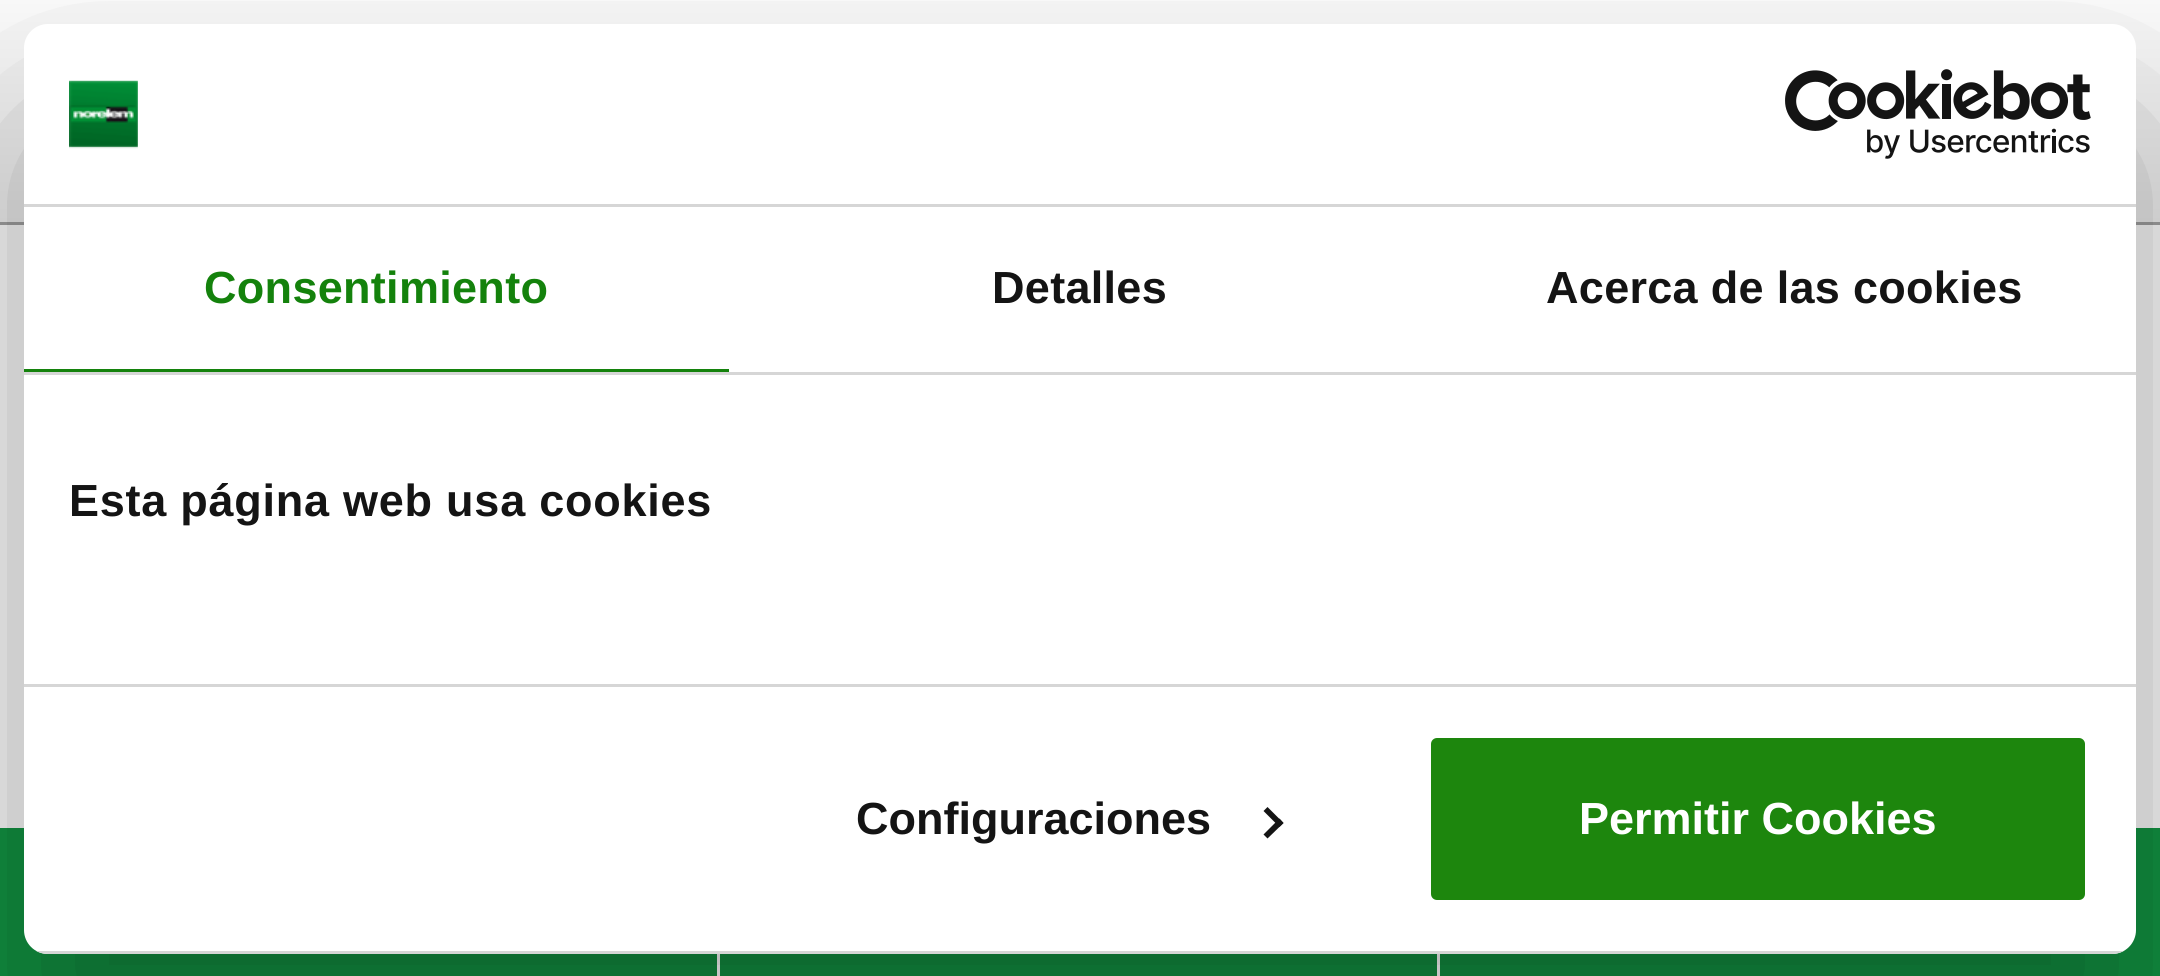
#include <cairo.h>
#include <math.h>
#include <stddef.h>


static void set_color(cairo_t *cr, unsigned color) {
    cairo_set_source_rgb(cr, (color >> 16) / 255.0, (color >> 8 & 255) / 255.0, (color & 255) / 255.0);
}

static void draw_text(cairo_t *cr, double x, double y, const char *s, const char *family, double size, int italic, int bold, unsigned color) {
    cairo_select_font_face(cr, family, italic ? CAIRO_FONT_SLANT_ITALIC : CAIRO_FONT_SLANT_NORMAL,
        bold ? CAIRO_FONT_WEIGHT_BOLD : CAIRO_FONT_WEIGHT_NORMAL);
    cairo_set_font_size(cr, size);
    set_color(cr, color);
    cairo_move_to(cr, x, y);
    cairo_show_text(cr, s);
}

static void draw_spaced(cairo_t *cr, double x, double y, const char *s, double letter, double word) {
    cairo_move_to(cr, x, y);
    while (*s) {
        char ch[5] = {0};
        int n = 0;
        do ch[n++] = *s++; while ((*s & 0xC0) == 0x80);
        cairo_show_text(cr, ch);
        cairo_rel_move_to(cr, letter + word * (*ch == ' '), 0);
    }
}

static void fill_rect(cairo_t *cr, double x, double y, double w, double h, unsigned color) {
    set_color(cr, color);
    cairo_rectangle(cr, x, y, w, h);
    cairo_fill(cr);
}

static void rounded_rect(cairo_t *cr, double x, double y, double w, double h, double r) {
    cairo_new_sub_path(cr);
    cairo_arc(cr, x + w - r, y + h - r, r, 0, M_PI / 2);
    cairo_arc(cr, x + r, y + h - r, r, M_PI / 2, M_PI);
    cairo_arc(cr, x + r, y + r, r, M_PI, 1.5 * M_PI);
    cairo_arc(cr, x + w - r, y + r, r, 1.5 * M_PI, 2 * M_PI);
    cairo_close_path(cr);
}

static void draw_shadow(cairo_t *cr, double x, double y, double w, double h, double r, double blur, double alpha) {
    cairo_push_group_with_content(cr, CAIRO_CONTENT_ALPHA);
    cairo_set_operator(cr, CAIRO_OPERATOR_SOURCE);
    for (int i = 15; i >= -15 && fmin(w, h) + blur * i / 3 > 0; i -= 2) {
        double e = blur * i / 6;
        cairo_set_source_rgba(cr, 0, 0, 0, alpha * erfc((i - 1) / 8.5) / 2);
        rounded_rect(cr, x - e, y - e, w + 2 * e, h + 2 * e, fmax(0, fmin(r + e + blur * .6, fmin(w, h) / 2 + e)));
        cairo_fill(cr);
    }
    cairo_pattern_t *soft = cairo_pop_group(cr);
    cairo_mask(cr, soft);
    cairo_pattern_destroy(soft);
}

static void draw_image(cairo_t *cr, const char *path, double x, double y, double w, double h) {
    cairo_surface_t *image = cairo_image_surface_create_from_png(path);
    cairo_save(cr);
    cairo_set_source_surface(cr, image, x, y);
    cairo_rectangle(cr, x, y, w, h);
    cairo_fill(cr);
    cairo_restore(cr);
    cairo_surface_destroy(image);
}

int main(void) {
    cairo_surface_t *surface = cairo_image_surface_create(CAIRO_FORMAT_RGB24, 2160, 976);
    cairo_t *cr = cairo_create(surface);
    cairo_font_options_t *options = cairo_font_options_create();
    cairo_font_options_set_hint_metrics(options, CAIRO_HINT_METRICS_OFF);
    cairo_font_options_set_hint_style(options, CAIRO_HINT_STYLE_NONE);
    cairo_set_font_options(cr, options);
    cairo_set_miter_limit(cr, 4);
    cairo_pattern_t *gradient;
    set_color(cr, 0xF3F3F3);
    cairo_paint(cr);
    gradient = cairo_pattern_create_linear(1080, 0, 1080, 222);
    cairo_pattern_add_color_stop_rgba(gradient, 0, 1, 1, 1, 1);
    cairo_pattern_add_color_stop_rgba(gradient, 1, 0.902, 0.902, 0.902, 1);
    cairo_set_source(cr, gradient);
    cairo_pattern_destroy(gradient);
    cairo_rectangle(cr, 0, 0, 2160, 222);
    cairo_fill(cr);
    fill_rect(cr, 0, 222, 2160, 3, 0x9B9B9B);
    fill_rect(cr, 0, 828, 717, 148, 0x118F40);
    fill_rect(cr, 717, 954, 3, 22, 0xFFFFFF);
    fill_rect(cr, 720, 954, 717, 22, 0x118F40);
    fill_rect(cr, 1437, 954, 3, 22, 0xFFFFFF);
    fill_rect(cr, 1440, 828, 720, 148, 0x118F40);
    set_color(cr, 0x000000);
    draw_shadow(cr, 24, 120, 2112, 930, 24, 102, 0.3);
    set_color(cr, 0xFFFFFF);
    rounded_rect(cr, 24, 24, 2112, 930, 24);
    cairo_fill(cr);
    fill_rect(cr, 24, 204, 2112, 3, 0xD6D6D6);
    draw_image(cr, "assets/img1.png", 69, 80, 69, 69);
    draw_image(cr, "assets/img2.png", 1785, 69, 306, 90);
    fill_rect(cr, 24, 372, 2112, 3, 0xD6D6D6);
    fill_rect(cr, 24, 369, 705, 3, 0x14820C);
    cairo_select_font_face(cr, "Liberation Sans", CAIRO_FONT_SLANT_NORMAL, CAIRO_FONT_WEIGHT_BOLD);
    cairo_set_font_size(cr, 45);
    draw_spaced(cr, 204, 303, "Consentimiento", 0.3, 0);
    set_color(cr, 0x141414);
    draw_spaced(cr, 992, 303, "Detalles", 0.3, 0);
    draw_spaced(cr, 1546, 303, "Acerca de las cookies", 0.3, 0);
    fill_rect(cr, 24, 684, 2112, 3, 0xD6D6D6);
    set_color(cr, 0x141414);
    draw_spaced(cr, 69, 516, "Esta página web usa cookies", 0.75, 0);
    cairo_save(cr);
    rounded_rect(cr, 24, 24, 2112, 930, 24);
    cairo_clip(cr);
    fill_rect(cr, 36, 951, 2088, 3, 0xD6D6D6);
    cairo_restore(cr);
    draw_text(cr, 856, 834, "Configuraciones", "Liberation Sans", 45, 0, 1, 0x141414);
    cairo_new_path(cr);
    cairo_move_to(cr, 1267.5, 807);
    cairo_line_to(cr, 1283.5, 823);
    cairo_line_to(cr, 1279.5, 827);
    cairo_line_to(cr, 1263.5, 811);
    cairo_close_path(cr);
    cairo_fill(cr);
    cairo_new_path(cr);
    cairo_move_to(cr, 1279.5, 818.5);
    cairo_line_to(cr, 1283.5, 823);
    cairo_line_to(cr, 1267.5, 838.5);
    cairo_line_to(cr, 1263.5, 834.5);
    cairo_close_path(cr);
    cairo_fill(cr);
    set_color(cr, 0x1D860D);
    rounded_rect(cr, 1428, 735, 660, 168, 9);
    cairo_fill_preserve(cr);
    set_color(cr, 0xFFFFFF);
    cairo_set_line_width(cr, 6);
    cairo_stroke(cr);
    draw_text(cr, 1579, 834, "Permitir Cookies", "Liberation Sans", 45, 0, 1, 0xFFFFFF);
    cairo_surface_write_to_png(surface, "output.png");
    cairo_font_options_destroy(options);
    cairo_destroy(cr);
    cairo_surface_destroy(surface);
    return 0;
}
